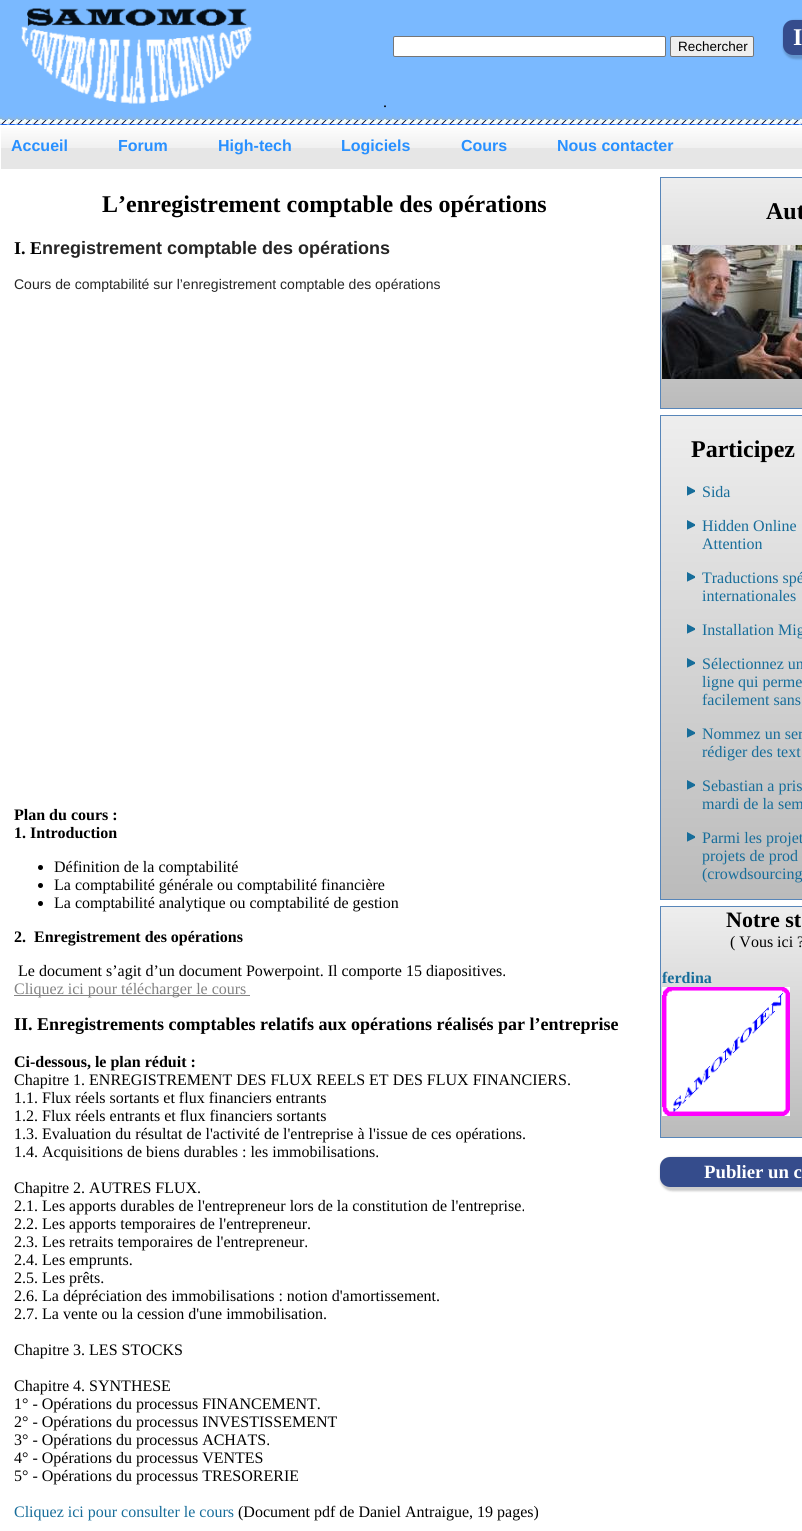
#include <cairo.h>
#include <math.h>
#include <stddef.h>


static void set_color(cairo_t *cr, unsigned color) {
    cairo_set_source_rgb(cr, (color >> 16) / 255.0, (color >> 8 & 255) / 255.0, (color & 255) / 255.0);
}

static void draw_text(cairo_t *cr, double x, double y, const char *s, const char *family, double size, int italic, int bold, unsigned color) {
    cairo_select_font_face(cr, family, italic ? CAIRO_FONT_SLANT_ITALIC : CAIRO_FONT_SLANT_NORMAL,
        bold ? CAIRO_FONT_WEIGHT_BOLD : CAIRO_FONT_WEIGHT_NORMAL);
    cairo_set_font_size(cr, size);
    set_color(cr, color);
    cairo_move_to(cr, x, y);
    cairo_show_text(cr, s);
}

static void fill_rect(cairo_t *cr, double x, double y, double w, double h, unsigned color) {
    set_color(cr, color);
    cairo_rectangle(cr, x, y, w, h);
    cairo_fill(cr);
}

static void rounded_rect(cairo_t *cr, double x, double y, double w, double h, double r) {
    cairo_new_sub_path(cr);
    cairo_arc(cr, x + w - r, y + h - r, r, 0, M_PI / 2);
    cairo_arc(cr, x + r, y + h - r, r, M_PI / 2, M_PI);
    cairo_arc(cr, x + r, y + r, r, M_PI, 1.5 * M_PI);
    cairo_arc(cr, x + w - r, y + r, r, 1.5 * M_PI, 2 * M_PI);
    cairo_close_path(cr);
}

static void draw_shadow(cairo_t *cr, double x, double y, double w, double h, double r, double blur, double alpha) {
    cairo_push_group_with_content(cr, CAIRO_CONTENT_ALPHA);
    cairo_set_operator(cr, CAIRO_OPERATOR_SOURCE);
    for (int i = 15; i >= -15 && fmin(w, h) + blur * i / 3 > 0; i -= 2) {
        double e = blur * i / 6;
        cairo_set_source_rgba(cr, 0, 0, 0, alpha * erfc((i - 1) / 8.5) / 2);
        rounded_rect(cr, x - e, y - e, w + 2 * e, h + 2 * e, fmax(0, fmin(r + e + blur * .6, fmin(w, h) / 2 + e)));
        cairo_fill(cr);
    }
    cairo_pattern_t *soft = cairo_pop_group(cr);
    cairo_mask(cr, soft);
    cairo_pattern_destroy(soft);
}

static void draw_image(cairo_t *cr, const char *path, double x, double y, double w, double h) {
    cairo_surface_t *image = cairo_image_surface_create_from_png(path);
    cairo_save(cr);
    cairo_set_source_surface(cr, image, x, y);
    cairo_rectangle(cr, x, y, w, h);
    cairo_fill(cr);
    cairo_restore(cr);
    cairo_surface_destroy(image);
}

int main(void) {
    cairo_surface_t *surface = cairo_image_surface_create(CAIRO_FORMAT_RGB24, 802, 1531);
    cairo_t *cr = cairo_create(surface);
    cairo_font_options_t *options = cairo_font_options_create();
    cairo_font_options_set_hint_metrics(options, CAIRO_HINT_METRICS_OFF);
    cairo_font_options_set_hint_style(options, CAIRO_HINT_STYLE_NONE);
    cairo_set_font_options(cr, options);
    cairo_set_miter_limit(cr, 4);
    cairo_pattern_t *gradient;
    set_color(cr, 0xFFFFFF);
    cairo_paint(cr);
    draw_image(cr, "assets/img1.png", 0, 124, 802, 1);
    draw_image(cr, "assets/img2.png", 0, 0, 802, 124);
    draw_image(cr, "assets/img3.png", 21, 8, 231, 96);
    set_color(cr, 0x000000);
    draw_shadow(cr, 783, 20, 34, 39, 12, 1, 0.2);
    set_color(cr, 0x354C8C);
    rounded_rect(cr, 783, 20, 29, 35, 10);
    cairo_fill(cr);
    draw_text(cr, 793, 45, "I", "Liberation Serif", 24, 0, 1, 0xFFFFFF);
    rounded_rect(cr, 393.5, 36.5, 272, 20, 1.5);
    cairo_fill_preserve(cr);
    set_color(cr, 0x767676);
    cairo_set_line_width(cr, 1);
    cairo_stroke(cr);
    set_color(cr, 0xEFEFEF);
    rounded_rect(cr, 670.5, 36.5, 83, 20, 1.5);
    cairo_fill_preserve(cr);
    set_color(cr, 0x767676);
    cairo_stroke(cr);
    draw_text(cr, 678, 51, "Rechercher", "Liberation Sans", 13.5, 0, 0, 0x000000);
    draw_text(cr, 383, 107, ".", "Liberation Serif", 16, 0, 0, 0x000000);
    gradient = cairo_pattern_create_linear(503, 126, 503, 169);
    cairo_pattern_add_color_stop_rgba(gradient, 0, 0.996, 0.996, 0.996, 1);
    cairo_pattern_add_color_stop_rgba(gradient, 0.5, 0.941, 0.941, 0.941, 1);
    cairo_pattern_add_color_stop_rgba(gradient, 0.51, 0.902, 0.902, 0.902, 1);
    cairo_set_source(cr, gradient);
    cairo_pattern_destroy(gradient);
    cairo_rectangle(cr, 1, 128, 801, 41);
    cairo_fill(cr);
    draw_text(cr, 11, 151, "Accueil", "Liberation Sans", 16, 0, 1, 0x2890FF);
    draw_text(cr, 118, 151, "Forum", "Liberation Sans", 16, 0, 1, 0x2890FF);
    draw_text(cr, 218, 151, "High-tech", "Liberation Sans", 16, 0, 1, 0x2890FF);
    draw_text(cr, 341, 151, "Logiciels", "Liberation Sans", 16, 0, 1, 0x2890FF);
    draw_text(cr, 461, 151, "Cours", "Liberation Sans", 16, 0, 1, 0x2890FF);
    draw_text(cr, 557, 151, "Nous contacter", "Liberation Sans", 16, 0, 1, 0x2890FF);
    draw_text(cr, 102, 212, "L’enregistrement comptable des opérations", "Liberation Serif", 24, 0, 1, 0x000000);
    draw_text(cr, 14, 254, "I. E", "Liberation Serif", 18, 0, 1, 0x000000);
    draw_text(cr, 42, 254, "nregistrement comptable des opérations", "Liberation Sans", 18, 0, 1, 0x252525);
    draw_text(cr, 14, 289, "Cours de comptabilité sur l’enregistrement comptable des opérations", "Liberation Sans", 14, 0, 0, 0x252525);
    draw_text(cr, 14, 820, "Plan du cours :", "Liberation Serif", 16, 0, 1, 0x000000);
    draw_text(cr, 14, 838, "1. Introduction", "Liberation Serif", 16, 0, 1, 0x000000);
    cairo_new_path(cr);
    cairo_arc(cr, 40.5, 867.5, 2.5, 0, 2 * M_PI);
    cairo_fill(cr);
    draw_text(cr, 54, 872, "Définition de la comptabilité", "Liberation Serif", 16, 0, 0, 0x000000);
    cairo_new_path(cr);
    cairo_arc(cr, 40.5, 885.5, 2.5, 0, 2 * M_PI);
    cairo_fill(cr);
    draw_text(cr, 54, 890, "La comptabilité générale ou comptabilité financière", "Liberation Serif", 16, 0, 0, 0x000000);
    cairo_new_path(cr);
    cairo_arc(cr, 40.5, 903.5, 2.5, 0, 2 * M_PI);
    cairo_fill(cr);
    draw_text(cr, 54, 908, "La comptabilité analytique ou comptabilité de gestion", "Liberation Serif", 16, 0, 0, 0x000000);
    draw_text(cr, 14, 942, "2.  Enregistrement des opérations", "Liberation Serif", 16, 0, 1, 0x000000);
    draw_text(cr, 18, 976, "Le document s’agit d’un document Powerpoint. Il comporte 15 diapositives.", "Liberation Serif", 16, 0, 0, 0x000000);
    fill_rect(cr, 14, 995, 236, 1, 0x838383);
    draw_text(cr, 14, 994, "Cliquez ici pour télécharger le cours", "Liberation Serif", 16, 0, 0, 0x838383);
    draw_text(cr, 14, 1030, "II. Enregistrements comptables relatifs aux opérations réalisés par l’entreprise", "Liberation Serif", 18, 0, 1, 0x000000);
    draw_text(cr, 14, 1067, "Ci-dessous, le plan réduit :", "Liberation Serif", 16, 0, 1, 0x000000);
    draw_text(cr, 14, 1085, "Chapitre 1. ENREGISTREMENT DES FLUX REELS ET DES FLUX FINANCIERS.", "Liberation Serif", 16, 0, 0, 0x000000);
    draw_text(cr, 14, 1103, "1.1. Flux réels sortants et flux financiers entrants", "Liberation Serif", 16, 0, 0, 0x000000);
    draw_text(cr, 14, 1121, "1.2. Flux réels entrants et flux financiers sortants", "Liberation Serif", 16, 0, 0, 0x000000);
    draw_text(cr, 14, 1139, "1.3. Evaluation du résultat de l'activité de l'entreprise à l'issue de ces opérations.", "Liberation Serif", 16, 0, 0, 0x000000);
    draw_text(cr, 14, 1157, "1.4. Acquisitions de biens durables : les immobilisations.", "Liberation Serif", 16, 0, 0, 0x000000);
    draw_text(cr, 14, 1193, "Chapitre 2. AUTRES FLUX.", "Liberation Serif", 16, 0, 0, 0x000000);
    draw_text(cr, 14, 1211, "2.1. Les apports durables de l'entrepreneur lors de la constitution de l'entreprise.", "Liberation Serif", 16, 0, 0, 0x000000);
    draw_text(cr, 14, 1229, "2.2. Les apports temporaires de l'entrepreneur.", "Liberation Serif", 16, 0, 0, 0x000000);
    draw_text(cr, 14, 1247, "2.3. Les retraits temporaires de l'entrepreneur.", "Liberation Serif", 16, 0, 0, 0x000000);
    draw_text(cr, 14, 1265, "2.4. Les emprunts.", "Liberation Serif", 16, 0, 0, 0x000000);
    draw_text(cr, 14, 1283, "2.5. Les prêts.", "Liberation Serif", 16, 0, 0, 0x000000);
    draw_text(cr, 14, 1301, "2.6. La dépréciation des immobilisations : notion d'amortissement.", "Liberation Serif", 16, 0, 0, 0x000000);
    draw_text(cr, 14, 1319, "2.7. La vente ou la cession d'une immobilisation.", "Liberation Serif", 16, 0, 0, 0x000000);
    draw_text(cr, 14, 1355, "Chapitre 3. LES STOCKS", "Liberation Serif", 16, 0, 0, 0x000000);
    draw_text(cr, 14, 1391, "Chapitre 4. SYNTHESE", "Liberation Serif", 16, 0, 0, 0x000000);
    draw_text(cr, 14, 1409, "1° - Opérations du processus FINANCEMENT.", "Liberation Serif", 16, 0, 0, 0x000000);
    draw_text(cr, 14, 1427, "2° - Opérations du processus INVESTISSEMENT", "Liberation Serif", 16, 0, 0, 0x000000);
    draw_text(cr, 14, 1445, "3° - Opérations du processus ACHATS.", "Liberation Serif", 16, 0, 0, 0x000000);
    draw_text(cr, 14, 1463, "4° - Opérations du processus VENTES", "Liberation Serif", 16, 0, 0, 0x000000);
    draw_text(cr, 14, 1481, "5° - Opérations du processus TRESORERIE", "Liberation Serif", 16, 0, 0, 0x000000);
    draw_text(cr, 14, 1517, "Cliquez ici pour consulter le cours", "Liberation Serif", 16, 0, 0, 0x176D9A);
    draw_text(cr, 238, 1517, "(Document pdf de Daniel Antraigue, 19 pages)", "Liberation Serif", 16, 0, 0, 0x000000);
    gradient = cairo_pattern_create_linear(661, 178, 661, 408);
    cairo_pattern_add_color_stop_rgba(gradient, 0, 0.933, 0.933, 0.933, 1);
    cairo_pattern_add_color_stop_rgba(gradient, 1, 0.733, 0.733, 0.733, 1);
    cairo_set_source(cr, gradient);
    cairo_pattern_destroy(gradient);
    cairo_rectangle(cr, 661, 178, 141, 230);
    cairo_fill(cr);
    cairo_rectangle(cr, 660.5, 177.5, 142, 231);
    set_color(cr, 0x5886B9);
    cairo_stroke(cr);
    draw_text(cr, 766, 219, "Aut", "Liberation Serif", 24, 0, 1, 0x000000);
    draw_image(cr, "assets/img4.png", 662, 245, 140, 134);
    gradient = cairo_pattern_create_linear(661, 416, 661, 899);
    cairo_pattern_add_color_stop_rgba(gradient, 0, 0.933, 0.933, 0.933, 1);
    cairo_pattern_add_color_stop_rgba(gradient, 1, 0.733, 0.733, 0.733, 1);
    cairo_set_source(cr, gradient);
    cairo_pattern_destroy(gradient);
    cairo_rectangle(cr, 661, 416, 141, 483);
    cairo_fill(cr);
    cairo_rectangle(cr, 660.5, 415.5, 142, 484);
    set_color(cr, 0x5886B9);
    cairo_stroke(cr);
    draw_text(cr, 691, 457, "Participez", "Liberation Serif", 24, 0, 1, 0x000000);
    draw_image(cr, "assets/img5.png", 687, 486, 8, 10);
    draw_text(cr, 702, 497, "Sida", "Liberation Serif", 16, 0, 0, 0x176D9A);
    draw_image(cr, "assets/img6.png", 687, 520, 8, 10);
    draw_text(cr, 702, 531, "Hidden Online", "Liberation Serif", 16, 0, 0, 0x176D9A);
    draw_text(cr, 702, 549, "Attention", "Liberation Serif", 16, 0, 0, 0x176D9A);
    draw_image(cr, "assets/img7.png", 687, 572, 8, 10);
    draw_text(cr, 702, 583, "Traductions spé", "Liberation Serif", 16, 0, 0, 0x176D9A);
    draw_text(cr, 702, 601, "internationales", "Liberation Serif", 16, 0, 0, 0x176D9A);
    draw_image(cr, "assets/img8.png", 687, 624, 8, 10);
    draw_text(cr, 702, 635, "Installation Mig", "Liberation Serif", 16, 0, 0, 0x176D9A);
    draw_image(cr, "assets/img9.png", 687, 658, 8, 10);
    draw_text(cr, 702, 669, "Sélectionnez un", "Liberation Serif", 16, 0, 0, 0x176D9A);
    draw_text(cr, 702, 687, "ligne qui perme", "Liberation Serif", 16, 0, 0, 0x176D9A);
    draw_text(cr, 702, 705, "facilement sans", "Liberation Serif", 16, 0, 0, 0x176D9A);
    draw_image(cr, "assets/img10.png", 687, 728, 8, 10);
    draw_text(cr, 702, 739, "Nommez un ser", "Liberation Serif", 16, 0, 0, 0x176D9A);
    draw_text(cr, 702, 757, "rédiger des text", "Liberation Serif", 16, 0, 0, 0x176D9A);
    draw_image(cr, "assets/img11.png", 687, 780, 8, 10);
    draw_text(cr, 702, 791, "Sebastian a pris", "Liberation Serif", 16, 0, 0, 0x176D9A);
    draw_text(cr, 702, 809, "mardi de la sem", "Liberation Serif", 16, 0, 0, 0x176D9A);
    draw_image(cr, "assets/img12.png", 687, 832, 8, 10);
    draw_text(cr, 702, 843, "Parmi les projet", "Liberation Serif", 16, 0, 0, 0x176D9A);
    draw_text(cr, 702, 861, "projets de prod", "Liberation Serif", 16, 0, 0, 0x176D9A);
    draw_text(cr, 702, 879, "(crowdsourcing", "Liberation Serif", 16, 0, 0, 0x176D9A);
    gradient = cairo_pattern_create_linear(661, 907, 661, 1137);
    cairo_pattern_add_color_stop_rgba(gradient, 0, 0.933, 0.933, 0.933, 1);
    cairo_pattern_add_color_stop_rgba(gradient, 1, 0.733, 0.733, 0.733, 1);
    cairo_set_source(cr, gradient);
    cairo_pattern_destroy(gradient);
    cairo_rectangle(cr, 661, 907, 141, 230);
    cairo_fill(cr);
    cairo_rectangle(cr, 660.5, 906.5, 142, 231);
    set_color(cr, 0x5886B9);
    cairo_stroke(cr);
    draw_text(cr, 726, 927, "Notre st", "Liberation Serif", 22, 0, 1, 0x000000);
    draw_text(cr, 730, 947, "( Vous ici ?", "Liberation Serif", 16, 0, 0, 0x000000);
    draw_text(cr, 662, 983, "ferdina", "Liberation Serif", 16, 0, 1, 0x176D9A);
    draw_image(cr, "assets/img13.png", 662, 987, 128, 129);
    set_color(cr, 0x000000);
    draw_shadow(cr, 660, 1157, 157, 34, 12, 1, 0.2);
    set_color(cr, 0x354C8C);
    rounded_rect(cr, 660, 1157, 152, 30, 10);
    cairo_fill(cr);
    draw_text(cr, 704, 1178, "Publier un c", "Liberation Serif", 18.75, 0, 1, 0xFFFFFF);
    cairo_surface_write_to_png(surface, "output.png");
    cairo_font_options_destroy(options);
    cairo_destroy(cr);
    cairo_surface_destroy(surface);
    return 0;
}
